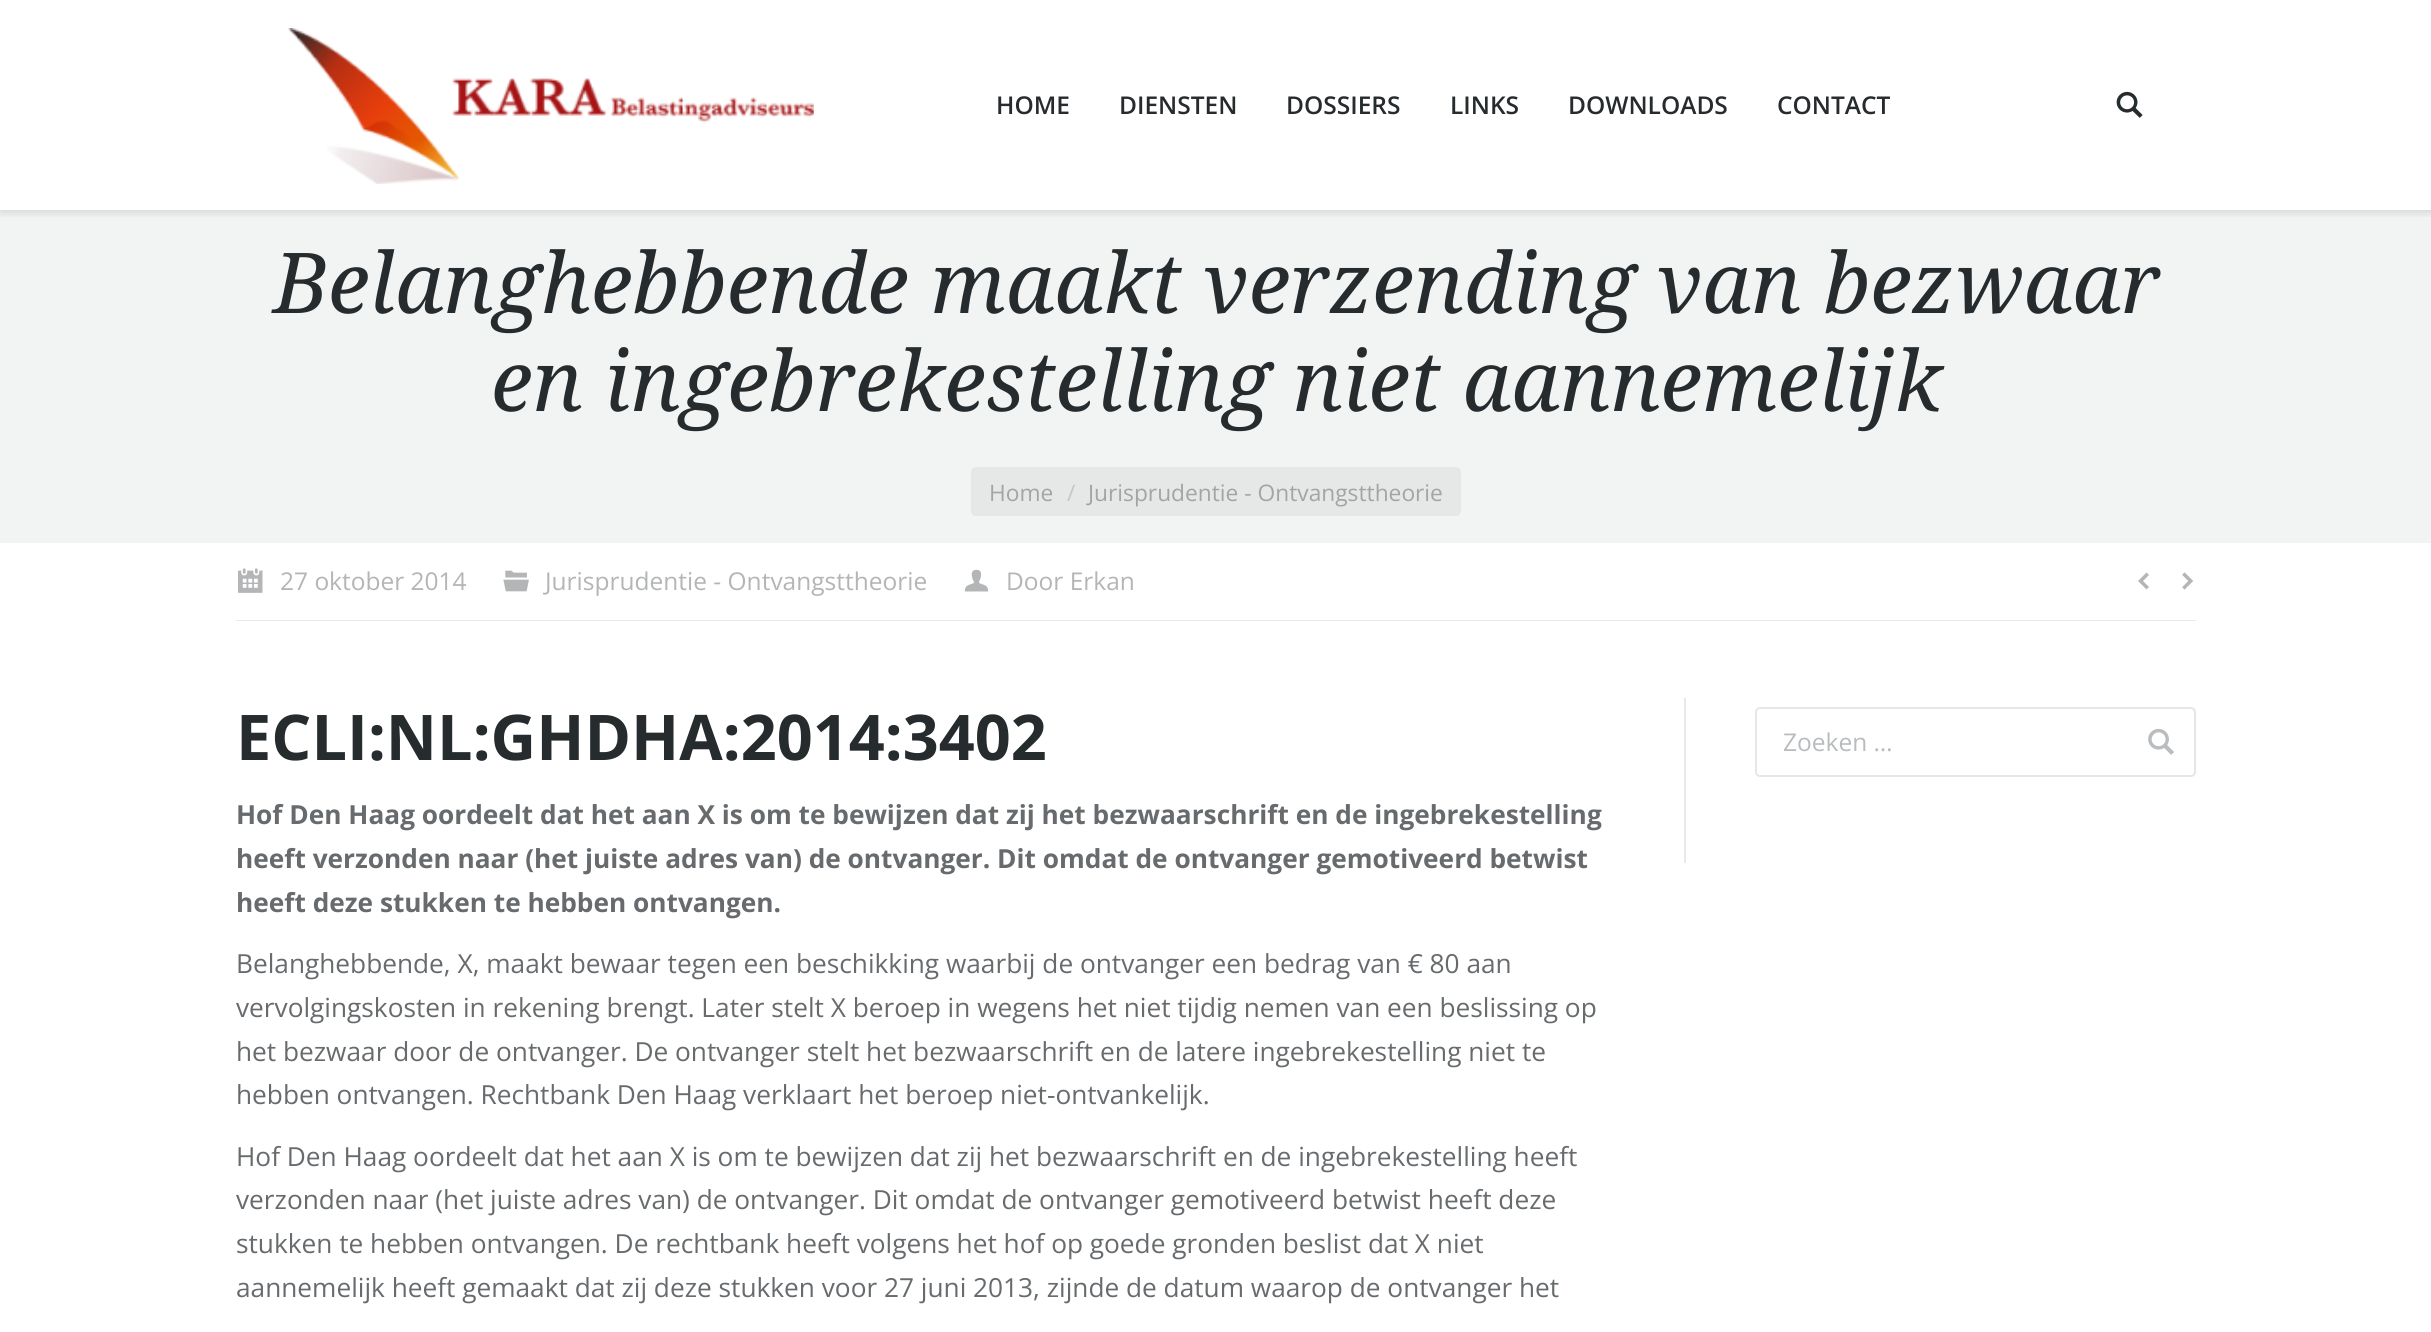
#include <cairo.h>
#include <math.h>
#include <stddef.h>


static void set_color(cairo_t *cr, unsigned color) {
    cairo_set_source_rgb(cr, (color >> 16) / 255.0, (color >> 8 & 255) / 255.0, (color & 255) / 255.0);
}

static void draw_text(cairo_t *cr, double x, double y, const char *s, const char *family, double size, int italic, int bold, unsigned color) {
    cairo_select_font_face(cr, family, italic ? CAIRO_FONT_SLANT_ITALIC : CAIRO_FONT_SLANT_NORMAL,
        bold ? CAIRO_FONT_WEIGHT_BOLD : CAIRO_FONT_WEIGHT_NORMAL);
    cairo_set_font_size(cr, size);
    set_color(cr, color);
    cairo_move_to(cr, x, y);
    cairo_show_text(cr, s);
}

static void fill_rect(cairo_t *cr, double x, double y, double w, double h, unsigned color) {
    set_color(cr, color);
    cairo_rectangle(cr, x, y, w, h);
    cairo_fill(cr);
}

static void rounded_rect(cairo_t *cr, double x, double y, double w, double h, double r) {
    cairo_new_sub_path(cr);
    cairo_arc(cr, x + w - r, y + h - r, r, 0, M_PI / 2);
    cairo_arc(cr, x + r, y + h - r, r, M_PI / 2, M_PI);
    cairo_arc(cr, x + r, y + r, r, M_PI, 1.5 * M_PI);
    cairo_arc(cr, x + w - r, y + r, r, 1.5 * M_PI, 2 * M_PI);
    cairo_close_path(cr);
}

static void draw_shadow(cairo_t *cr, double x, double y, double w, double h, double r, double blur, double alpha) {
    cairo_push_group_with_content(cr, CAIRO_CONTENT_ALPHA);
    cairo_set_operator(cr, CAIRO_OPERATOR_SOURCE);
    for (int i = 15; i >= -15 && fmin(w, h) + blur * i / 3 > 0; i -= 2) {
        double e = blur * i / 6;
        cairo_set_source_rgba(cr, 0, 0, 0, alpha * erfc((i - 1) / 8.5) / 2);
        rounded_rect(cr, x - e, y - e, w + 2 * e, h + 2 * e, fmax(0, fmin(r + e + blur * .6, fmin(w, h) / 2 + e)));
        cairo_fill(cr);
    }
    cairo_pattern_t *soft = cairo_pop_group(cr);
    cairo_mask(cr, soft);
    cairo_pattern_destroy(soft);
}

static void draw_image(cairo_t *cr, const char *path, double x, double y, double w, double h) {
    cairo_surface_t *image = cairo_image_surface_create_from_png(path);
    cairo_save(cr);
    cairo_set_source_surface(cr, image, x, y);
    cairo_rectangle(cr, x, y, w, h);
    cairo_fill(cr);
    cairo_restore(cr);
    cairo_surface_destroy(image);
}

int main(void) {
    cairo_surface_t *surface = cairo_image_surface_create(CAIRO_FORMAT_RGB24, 2431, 1332);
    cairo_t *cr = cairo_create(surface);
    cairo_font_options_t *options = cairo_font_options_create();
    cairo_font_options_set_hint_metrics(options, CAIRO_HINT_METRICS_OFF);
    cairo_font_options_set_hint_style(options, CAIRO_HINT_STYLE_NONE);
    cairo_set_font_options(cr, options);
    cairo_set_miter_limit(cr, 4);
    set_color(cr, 0xFFFFFF);
    cairo_paint(cr);
    fill_rect(cr, 0, 210, 2431, 333, 0xF2F3F3);
    cairo_save(cr);
    cairo_rectangle(cr, 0, 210, 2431, 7);
    cairo_clip(cr);
    set_color(cr, 0x000000);
    draw_shadow(cr, 0, 0, 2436, 214, 0, 3.5, 0.1);
    cairo_restore(cr);
    draw_image(cr, "assets/img1.png", 288, 28, 526, 156);
    draw_text(cr, 996, 114, "HOME", "Open Sans SemiBold", 24.5, 0, 0, 0x262B2E);
    draw_text(cr, 1119, 114, "DIENSTEN", "Open Sans SemiBold", 24.5, 0, 0, 0x262B2E);
    draw_text(cr, 1286, 114, "DOSSIERS", "Open Sans SemiBold", 24.5, 0, 0, 0x262B2E);
    draw_text(cr, 1450, 114, "LINKS", "Open Sans SemiBold", 24.5, 0, 0, 0x262B2E);
    draw_text(cr, 1568, 114, "DOWNLOADS", "Open Sans SemiBold", 24.5, 0, 0, 0x262B2E);
    draw_text(cr, 1777, 114, "CONTACT", "Open Sans SemiBold", 24.5, 0, 0, 0x262B2E);
    draw_image(cr, "assets/img2.png", 2116, 91, 27, 27);
    draw_text(cr, 273, 313, "Belanghebbende maakt verzending van bezwaar", "Droid Serif", 84, 1, 0, 0x262B2E);
    draw_text(cr, 491, 411, "en ingebrekestelling niet aannemelijk", "Droid Serif", 84, 1, 0, 0x262B2E);
    set_color(cr, 0xE6E7E7);
    rounded_rect(cr, 971, 467, 490, 49, 5);
    cairo_fill(cr);
    draw_text(cr, 989, 501, "Home", "Open Sans", 22.75, 0, 0, 0xA2A5A6);
    draw_text(cr, 1067, 501, "/", "Open Sans", 22.75, 0, 0, 0xC4C6C7);
    draw_text(cr, 1088, 501, "Jurisprudentie - Ontvangsttheorie", "Open Sans", 22.75, 0, 0, 0xA2A5A6);
    fill_rect(cr, 236, 620, 1960, 1, 0xE8E9E9);
    draw_image(cr, "assets/img3.png", 238, 568, 25, 25);
    draw_text(cr, 280, 590, "27 oktober 2014", "Open Sans", 24.5, 0, 0, 0xB3B5B6);
    draw_image(cr, "assets/img4.png", 503, 570, 26, 22);
    draw_text(cr, 545, 590, "Jurisprudentie - Ontvangsttheorie", "Open Sans", 24.5, 0, 0, 0xB3B5B6);
    draw_image(cr, "assets/img5.png", 964, 569, 25, 23);
    draw_text(cr, 1006, 590, "Door Erkan", "Open Sans", 24.5, 0, 0, 0xB3B5B6);
    cairo_new_path(cr);
    cairo_move_to(cr, 2149, 587);
    cairo_line_to(cr, 2143, 581);
    cairo_line_to(cr, 2149, 575);
    cairo_line_to(cr, 2146.5, 572.5);
    cairo_line_to(cr, 2138, 581);
    cairo_line_to(cr, 2146.5, 589.5);
    cairo_close_path(cr);
    cairo_fill(cr);
    draw_image(cr, "assets/img6.png", 2182, 572, 11, 18);
    draw_text(cr, 236, 760, "ECLI:NL:GHDHA:2014:3402", "Open Sans", 63, 0, 1, 0x262B2E);
    draw_text(cr, 236, 824, "Hof Den Haag oordeelt dat het aan X is om te bewijzen dat zij het bezwaarschrift en de ingebrekestelling", "Open Sans", 26.25, 0, 1, 0x676B6D);
    draw_text(cr, 236, 868, "heeft verzonden naar (het juiste adres van) de ontvanger. Dit omdat de ontvanger gemotiveerd betwist", "Open Sans", 26.25, 0, 1, 0x676B6D);
    draw_text(cr, 236, 912, "heeft deze stukken te hebben ontvangen.", "Open Sans", 26.25, 0, 1, 0x676B6D);
    draw_text(cr, 236, 973, "Belanghebbende, X, maakt bewaar tegen een beschikking waarbij de ontvanger een bedrag van € 80 aan", "Open Sans", 26.25, 0, 0, 0x676B6D);
    draw_text(cr, 236, 1017, "vervolgingskosten in rekening brengt. Later stelt X beroep in wegens het niet tijdig nemen van een beslissing op", "Open Sans", 26.25, 0, 0, 0x676B6D);
    draw_text(cr, 236, 1061, "het bezwaar door de ontvanger. De ontvanger stelt het bezwaarschrift en de latere ingebrekestelling niet te", "Open Sans", 26.25, 0, 0, 0x676B6D);
    draw_text(cr, 236, 1104, "hebben ontvangen. Rechtbank Den Haag verklaart het beroep niet-ontvankelijk.", "Open Sans", 26.25, 0, 0, 0x676B6D);
    draw_text(cr, 236, 1166, "Hof Den Haag oordeelt dat het aan X is om te bewijzen dat zij het bezwaarschrift en de ingebrekestelling heeft", "Open Sans", 26.25, 0, 0, 0x676B6D);
    draw_text(cr, 236, 1209, "verzonden naar (het juiste adres van) de ontvanger. Dit omdat de ontvanger gemotiveerd betwist heeft deze", "Open Sans", 26.25, 0, 0, 0x676B6D);
    draw_text(cr, 236, 1253, "stukken te hebben ontvangen. De rechtbank heeft volgens het hof op goede gronden beslist dat X niet", "Open Sans", 26.25, 0, 0, 0x676B6D);
    draw_text(cr, 236, 1297, "aannemelijk heeft gemaakt dat zij deze stukken voor 27 juni 2013, zijnde de datum waarop de ontvanger het", "Open Sans", 26.25, 0, 0, 0x676B6D);
    fill_rect(cr, 1684, 698, 2, 165, 0xE8E9E9);
    rounded_rect(cr, 1756, 708, 439, 68, 4);
    set_color(cr, 0xE6E6E6);
    cairo_stroke(cr);
    draw_text(cr, 1783, 751, "Zoeken …", "Open Sans", 24.5, 0, 0, 0xB8BCBE);
    draw_image(cr, "assets/img7.png", 2148, 728, 26, 27);
    cairo_surface_write_to_png(surface, "output.png");
    cairo_font_options_destroy(options);
    cairo_destroy(cr);
    cairo_surface_destroy(surface);
    return 0;
}
